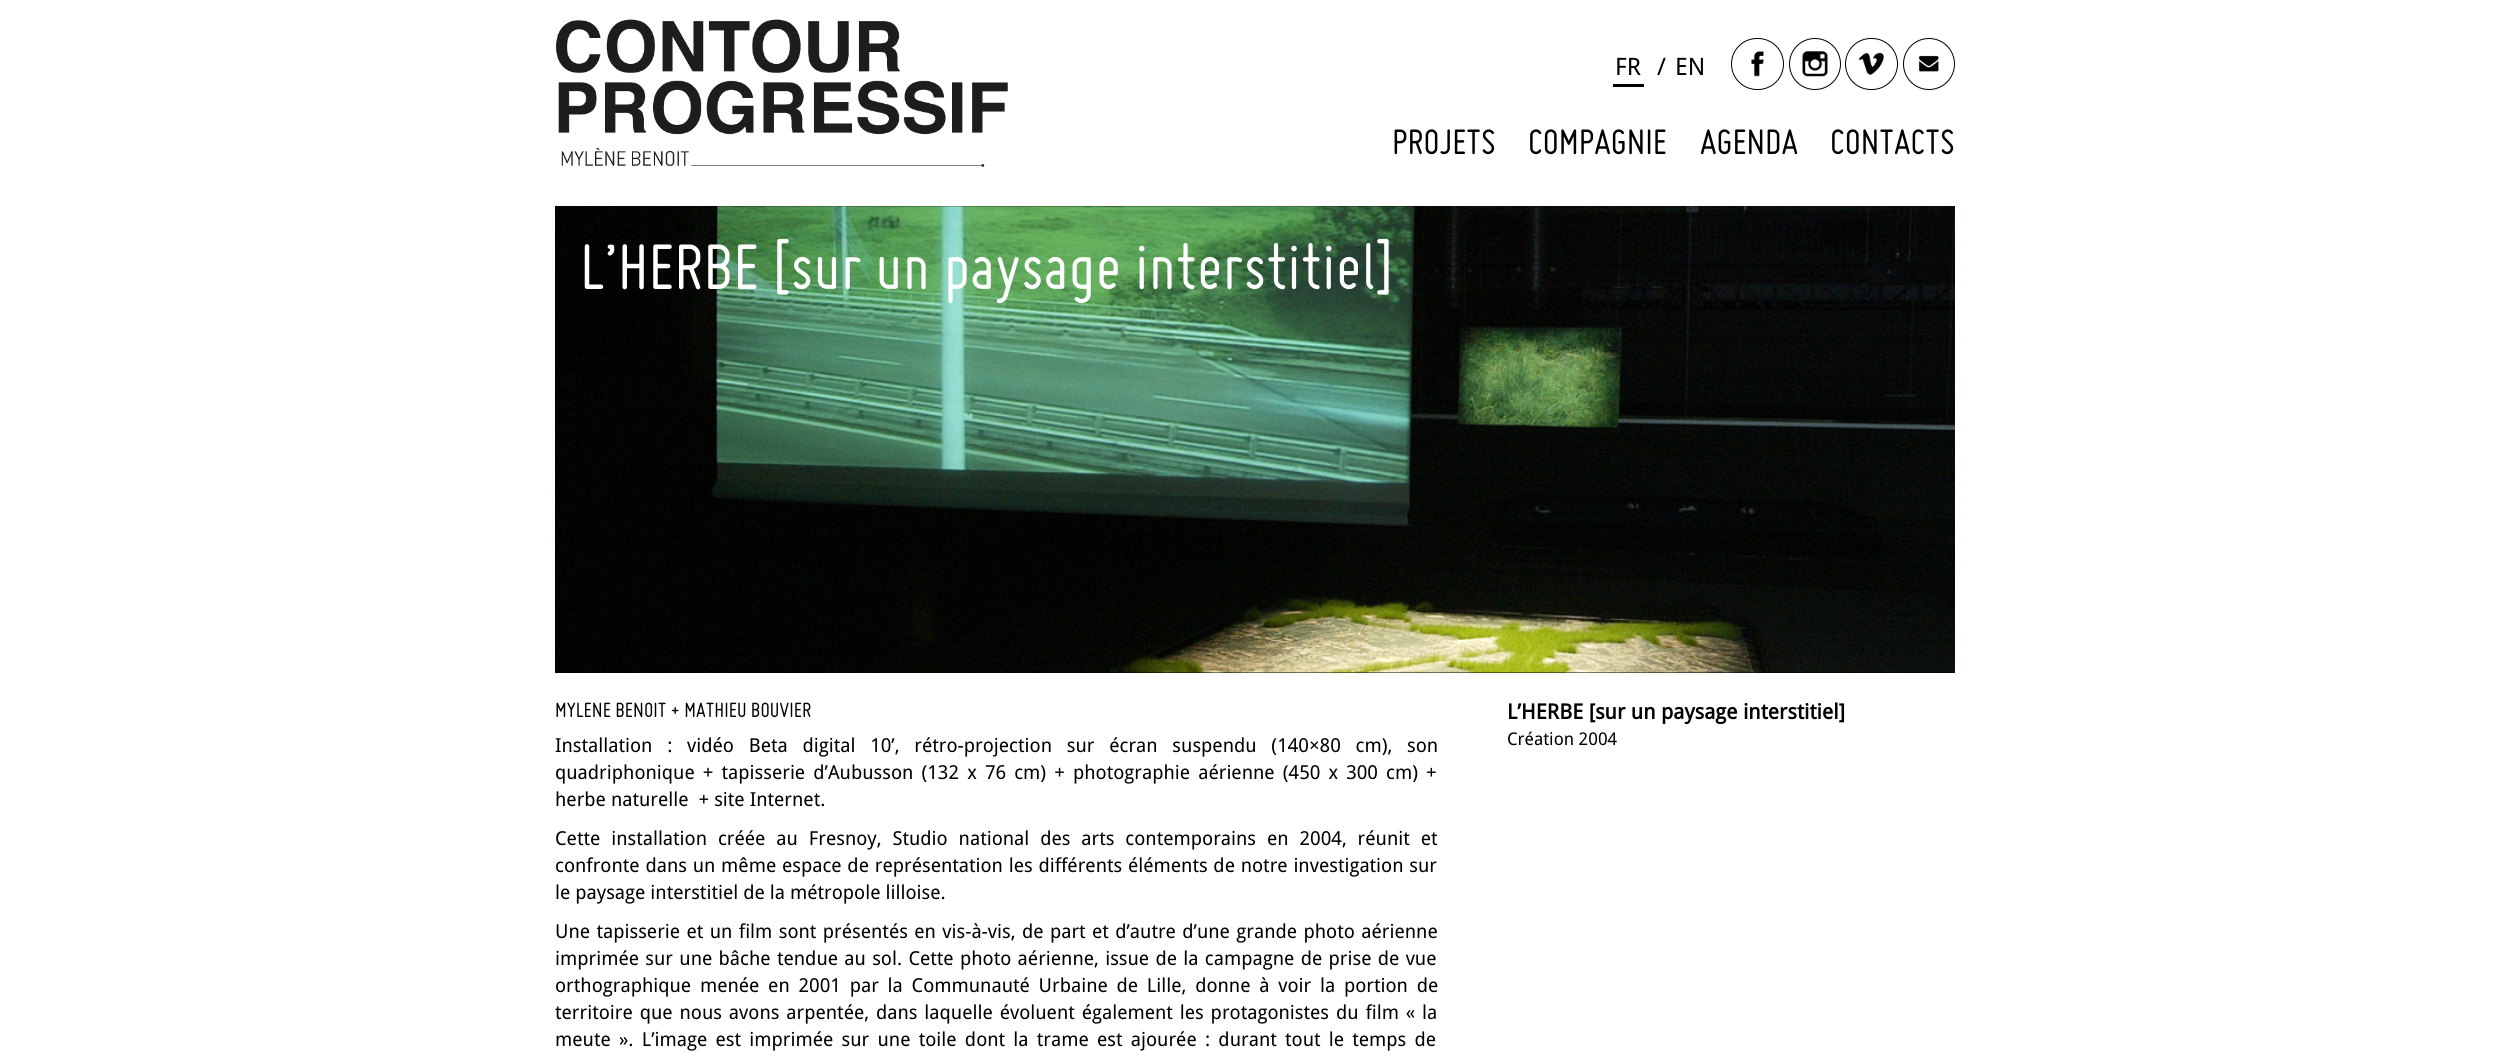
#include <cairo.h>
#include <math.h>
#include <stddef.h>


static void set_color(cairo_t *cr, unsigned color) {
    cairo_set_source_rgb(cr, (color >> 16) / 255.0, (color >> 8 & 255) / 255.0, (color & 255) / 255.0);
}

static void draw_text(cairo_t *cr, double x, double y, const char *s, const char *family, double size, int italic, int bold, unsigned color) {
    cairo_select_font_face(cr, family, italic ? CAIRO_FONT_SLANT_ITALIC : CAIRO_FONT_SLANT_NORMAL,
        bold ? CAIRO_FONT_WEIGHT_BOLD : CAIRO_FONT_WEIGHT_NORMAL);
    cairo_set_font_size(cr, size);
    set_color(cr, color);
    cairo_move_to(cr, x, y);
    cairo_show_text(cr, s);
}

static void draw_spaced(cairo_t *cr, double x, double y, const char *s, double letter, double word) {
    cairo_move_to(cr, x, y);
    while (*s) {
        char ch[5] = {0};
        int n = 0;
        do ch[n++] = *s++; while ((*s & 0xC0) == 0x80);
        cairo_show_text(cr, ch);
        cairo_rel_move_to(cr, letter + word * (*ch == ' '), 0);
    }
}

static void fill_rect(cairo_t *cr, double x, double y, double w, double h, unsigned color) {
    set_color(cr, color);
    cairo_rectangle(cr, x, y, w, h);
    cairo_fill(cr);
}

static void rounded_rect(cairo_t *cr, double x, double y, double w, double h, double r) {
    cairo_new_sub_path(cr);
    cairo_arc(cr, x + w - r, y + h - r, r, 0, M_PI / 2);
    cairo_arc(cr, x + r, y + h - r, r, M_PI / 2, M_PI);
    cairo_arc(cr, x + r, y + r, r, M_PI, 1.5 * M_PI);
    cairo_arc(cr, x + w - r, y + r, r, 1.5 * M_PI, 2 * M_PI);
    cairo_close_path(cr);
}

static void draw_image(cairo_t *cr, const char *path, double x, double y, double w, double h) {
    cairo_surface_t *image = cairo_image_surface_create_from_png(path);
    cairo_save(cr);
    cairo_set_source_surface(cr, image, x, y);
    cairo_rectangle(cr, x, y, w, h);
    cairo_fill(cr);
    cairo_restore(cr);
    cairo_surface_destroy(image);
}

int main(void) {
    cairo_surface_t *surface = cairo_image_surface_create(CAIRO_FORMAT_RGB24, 2509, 1061);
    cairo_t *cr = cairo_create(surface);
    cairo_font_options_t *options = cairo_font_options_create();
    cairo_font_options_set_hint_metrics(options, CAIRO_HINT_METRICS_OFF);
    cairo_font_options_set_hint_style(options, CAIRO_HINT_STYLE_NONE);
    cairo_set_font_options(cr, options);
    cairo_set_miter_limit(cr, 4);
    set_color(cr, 0xFFFFFF);
    cairo_paint(cr);
    draw_image(cr, "assets/img1.png", 555, 19, 453, 148);
    draw_text(cr, 1615, 75, "FR", "Droid Sans", 24, 0, 0, 0x000000);
    fill_rect(cr, 1613, 84, 31, 3, 0x000000);
    draw_text(cr, 1657, 75, "/", "Droid Sans", 24, 0, 0, 0x000000);
    draw_text(cr, 1675, 75, "EN", "Droid Sans", 24, 0, 0, 0x000000);
    rounded_rect(cr, 1731.5, 38.5, 52, 51, 25.5);
    cairo_set_line_width(cr, 1);
    cairo_stroke(cr);
    draw_image(cr, "assets/img2.png", 1751, 51, 13, 26);
    cairo_arc(cr, 1815, 64, 25.5, 0, 2 * M_PI);
    cairo_stroke(cr);
    draw_image(cr, "assets/img3.png", 1802, 51, 26, 26);
    rounded_rect(cr, 1845.5, 38.5, 52, 51, 25.5);
    cairo_stroke(cr);
    draw_image(cr, "assets/img4.png", 1858, 52, 26, 23);
    cairo_arc(cr, 1929, 64, 25.5, 0, 2 * M_PI);
    cairo_stroke(cr);
    draw_image(cr, "assets/img5.png", 1918, 55, 21, 17);
    draw_text(cr, 1392, 154, "PROJETS", "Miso", 38.5, 0, 0, 0x000000);
    draw_text(cr, 1528, 154, "COMPAGNIE", "Miso", 38.5, 0, 0, 0x000000);
    draw_text(cr, 1700, 154, "AGENDA", "Miso", 38.5, 0, 0, 0x000000);
    draw_text(cr, 1830, 154, "CONTACTS", "Miso", 38.5, 0, 0, 0x000000);
    fill_rect(cr, 555, 206, 1400, 467, 0x000000);
    draw_image(cr, "assets/img6.png", 555, 206, 1400, 467);
    draw_text(cr, 580, 289, "L’HERBE [sur un paysage interstitiel]", "Miso", 70, 0, 0, 0xFFFFFF);
    draw_text(cr, 555, 717, "MYLENE BENOIT + MATHIEU BOUVIER", "Miso", 22.5, 0, 0, 0x000000);
    cairo_select_font_face(cr, "Droid Sans", CAIRO_FONT_SLANT_NORMAL, CAIRO_FONT_WEIGHT_NORMAL);
    cairo_set_font_size(cr, 19.25);
    draw_spaced(cr, 555, 752, "Installation : vidéo Beta digital 10’, rétro-projection sur écran suspendu (140×80 cm), son", 0, 9.75);
    draw_spaced(cr, 555, 779, "quadriphonique + tapisserie d’Aubusson (132 x 76 cm) + photographie aérienne (450 x 300 cm) +", 0, 3.1);
    draw_text(cr, 555, 806, "herbe naturelle  + site Internet.", "Droid Sans", 19.25, 0, 0, 0x000000);
    draw_spaced(cr, 555, 845, "Cette installation créée au Fresnoy, Studio national des arts contemporains en 2004, réunit et", 0, 5.9);
    draw_spaced(cr, 555, 872, "confronte dans un même espace de représentation les différents éléments de notre investigation sur", 0, 0.75);
    draw_text(cr, 555, 899, "le paysage interstitiel de la métropole lilloise.", "Droid Sans", 19.25, 0, 0, 0x000000);
    draw_spaced(cr, 555, 938, "Une tapisserie et un film sont présentés en vis-à-vis, de part et d’autre d’une grande photo aérienne", 0, 1.4);
    draw_spaced(cr, 555, 965, "imprimée sur une bâche tendue au sol. Cette photo aérienne, issue de la campagne de prise de vue", 0, 1.3);
    draw_spaced(cr, 555, 992, "orthographique menée en 2001 par la Communauté Urbaine de Lille, donne à voir la portion de", 0, 3.75);
    draw_spaced(cr, 555, 1019, "territoire que nous avons arpentée, dans laquelle évoluent également les protagonistes du film « la", 0, 1.9);
    draw_spaced(cr, 555, 1046, "meute ». L’image est imprimée sur une toile dont la trame est ajourée : durant tout le temps de", 0, 3.25);
    draw_text(cr, 1507, 719, "L’HERBE [sur un paysage interstitiel]", "Droid Sans", 21, 0, 1, 0x000000);
    draw_text(cr, 1507, 745, "Création 2004", "Droid Sans", 17.5, 0, 0, 0x000000);
    cairo_surface_write_to_png(surface, "output.png");
    cairo_font_options_destroy(options);
    cairo_destroy(cr);
    cairo_surface_destroy(surface);
    return 0;
}
